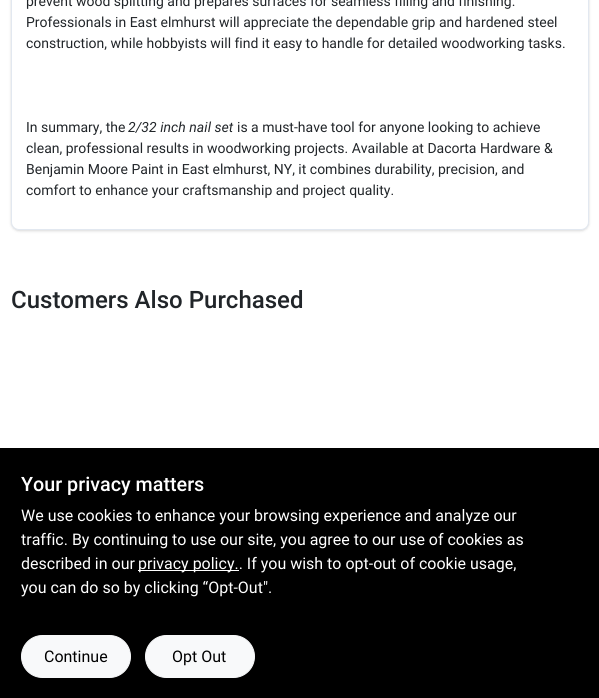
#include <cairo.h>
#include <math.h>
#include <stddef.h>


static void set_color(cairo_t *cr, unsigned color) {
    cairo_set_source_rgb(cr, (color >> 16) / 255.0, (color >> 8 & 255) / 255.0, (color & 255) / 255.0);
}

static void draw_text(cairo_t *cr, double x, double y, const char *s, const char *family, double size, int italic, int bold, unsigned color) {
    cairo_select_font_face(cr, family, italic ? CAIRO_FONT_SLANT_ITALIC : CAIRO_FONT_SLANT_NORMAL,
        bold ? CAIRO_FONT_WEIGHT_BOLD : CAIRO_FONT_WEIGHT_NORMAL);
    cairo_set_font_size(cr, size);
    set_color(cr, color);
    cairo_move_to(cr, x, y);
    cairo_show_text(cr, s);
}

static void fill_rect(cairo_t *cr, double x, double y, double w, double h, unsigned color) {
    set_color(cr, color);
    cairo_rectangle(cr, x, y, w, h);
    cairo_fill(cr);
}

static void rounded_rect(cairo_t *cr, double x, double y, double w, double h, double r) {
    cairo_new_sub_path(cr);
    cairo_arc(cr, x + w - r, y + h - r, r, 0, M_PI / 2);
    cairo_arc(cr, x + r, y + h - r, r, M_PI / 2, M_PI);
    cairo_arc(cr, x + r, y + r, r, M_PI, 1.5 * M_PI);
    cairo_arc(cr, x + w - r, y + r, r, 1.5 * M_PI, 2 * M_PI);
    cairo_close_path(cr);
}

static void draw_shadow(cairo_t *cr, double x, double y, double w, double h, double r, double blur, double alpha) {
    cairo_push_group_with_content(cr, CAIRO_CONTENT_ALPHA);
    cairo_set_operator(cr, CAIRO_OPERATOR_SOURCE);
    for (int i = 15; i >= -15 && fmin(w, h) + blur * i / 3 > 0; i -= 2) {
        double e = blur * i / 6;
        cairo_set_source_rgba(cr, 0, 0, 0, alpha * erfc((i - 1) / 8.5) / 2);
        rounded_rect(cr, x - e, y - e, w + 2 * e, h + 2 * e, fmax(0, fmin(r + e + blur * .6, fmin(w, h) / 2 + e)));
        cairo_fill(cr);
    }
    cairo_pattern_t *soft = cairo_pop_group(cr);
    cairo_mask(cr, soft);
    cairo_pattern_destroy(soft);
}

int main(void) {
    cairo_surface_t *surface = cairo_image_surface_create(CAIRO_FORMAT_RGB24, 599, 698);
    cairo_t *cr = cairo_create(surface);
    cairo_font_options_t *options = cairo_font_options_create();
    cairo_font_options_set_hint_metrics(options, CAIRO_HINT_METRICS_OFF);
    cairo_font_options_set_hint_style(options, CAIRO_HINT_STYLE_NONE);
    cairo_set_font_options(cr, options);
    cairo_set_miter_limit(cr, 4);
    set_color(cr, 0xFFFFFF);
    cairo_paint(cr);
    set_color(cr, 0x000000);
    draw_shadow(cr, 11, -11, 578, 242, 8, 1, 0.06);
    draw_shadow(cr, 11, -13, 578, 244, 8, 1.5, 0.1);
    set_color(cr, 0xFFFFFF);
    rounded_rect(cr, 11.5, -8.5, 577, 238, 7.5);
    cairo_fill_preserve(cr);
    set_color(cr, 0xE2E8F0);
    cairo_set_line_width(cr, 1);
    cairo_stroke(cr);
    draw_text(cr, 26, 6, "prevent wood splitting and prepares surfaces for seamless filling and finishing.", "Roboto", 14, 0, 0, 0x212529);
    draw_text(cr, 26, 27, "Professionals in East elmhurst will appreciate the dependable grip and hardened steel", "Roboto", 14, 0, 0, 0x212529);
    draw_text(cr, 26, 48, "construction, while hobbyists will find it easy to handle for detailed woodworking tasks.", "Roboto", 14, 0, 0, 0x212529);
    draw_text(cr, 26, 132, "In summary, the", "Roboto", 14, 0, 0, 0x212529);
    draw_text(cr, 128, 132, "2/32 inch nail set", "Roboto", 14, 1, 0, 0x212529);
    draw_text(cr, 237, 132, "is a must-have tool for anyone looking to achieve", "Roboto", 14, 0, 0, 0x212529);
    draw_text(cr, 26, 153, "clean, professional results in woodworking projects. Available at Dacorta Hardware &", "Roboto", 14, 0, 0, 0x212529);
    draw_text(cr, 26, 174, "Benjamin Moore Paint in East elmhurst, NY, it combines durability, precision, and", "Roboto", 14, 0, 0, 0x212529);
    draw_text(cr, 26, 195, "comfort to enhance your craftsmanship and project quality.", "Roboto", 14, 0, 0, 0x212529);
    draw_text(cr, 11, 308, "Customers Also Purchased", "Roboto Medium", 24, 0, 0, 0x212529);
    fill_rect(cr, 0, 448, 599, 250, 0x000000);
    draw_text(cr, 21, 491, "Your privacy matters", "Roboto Medium", 19.75, 0, 0, 0xFFFFFF);
    draw_text(cr, 21, 521, "We use cookies to enhance your browsing experience and analyze our", "Roboto", 16, 0, 0, 0xFFFFFF);
    draw_text(cr, 21, 545, "traffic. By continuing to use our site, you agree to our use of cookies as", "Roboto", 16, 0, 0, 0xFFFFFF);
    draw_text(cr, 21, 569, "described in our", "Roboto", 16, 0, 0, 0xFFFFFF);
    fill_rect(cr, 138, 570, 101, 1, 0xFFFFFF);
    draw_text(cr, 138, 569, "privacy policy.. If you wish to opt-out of cookie usage,", "Roboto", 16, 0, 0, 0xFFFFFF);
    draw_text(cr, 21, 593, "you can do so by clicking “Opt-Out\".", "Roboto", 16, 0, 0, 0xFFFFFF);
    set_color(cr, 0xF8F9FA);
    rounded_rect(cr, 21.5, 635.5, 109, 42, 21);
    cairo_fill_preserve(cr);
    cairo_stroke(cr);
    draw_text(cr, 44, 662, "Continue", "Roboto", 16, 0, 0, 0x000000);
    set_color(cr, 0xF8F9FA);
    rounded_rect(cr, 145.5, 635.5, 109, 42, 21);
    cairo_fill_preserve(cr);
    cairo_stroke(cr);
    draw_text(cr, 172, 662, "Opt Out", "Roboto", 16, 0, 0, 0x000000);
    cairo_surface_write_to_png(surface, "output.png");
    cairo_font_options_destroy(options);
    cairo_destroy(cr);
    cairo_surface_destroy(surface);
    return 0;
}
